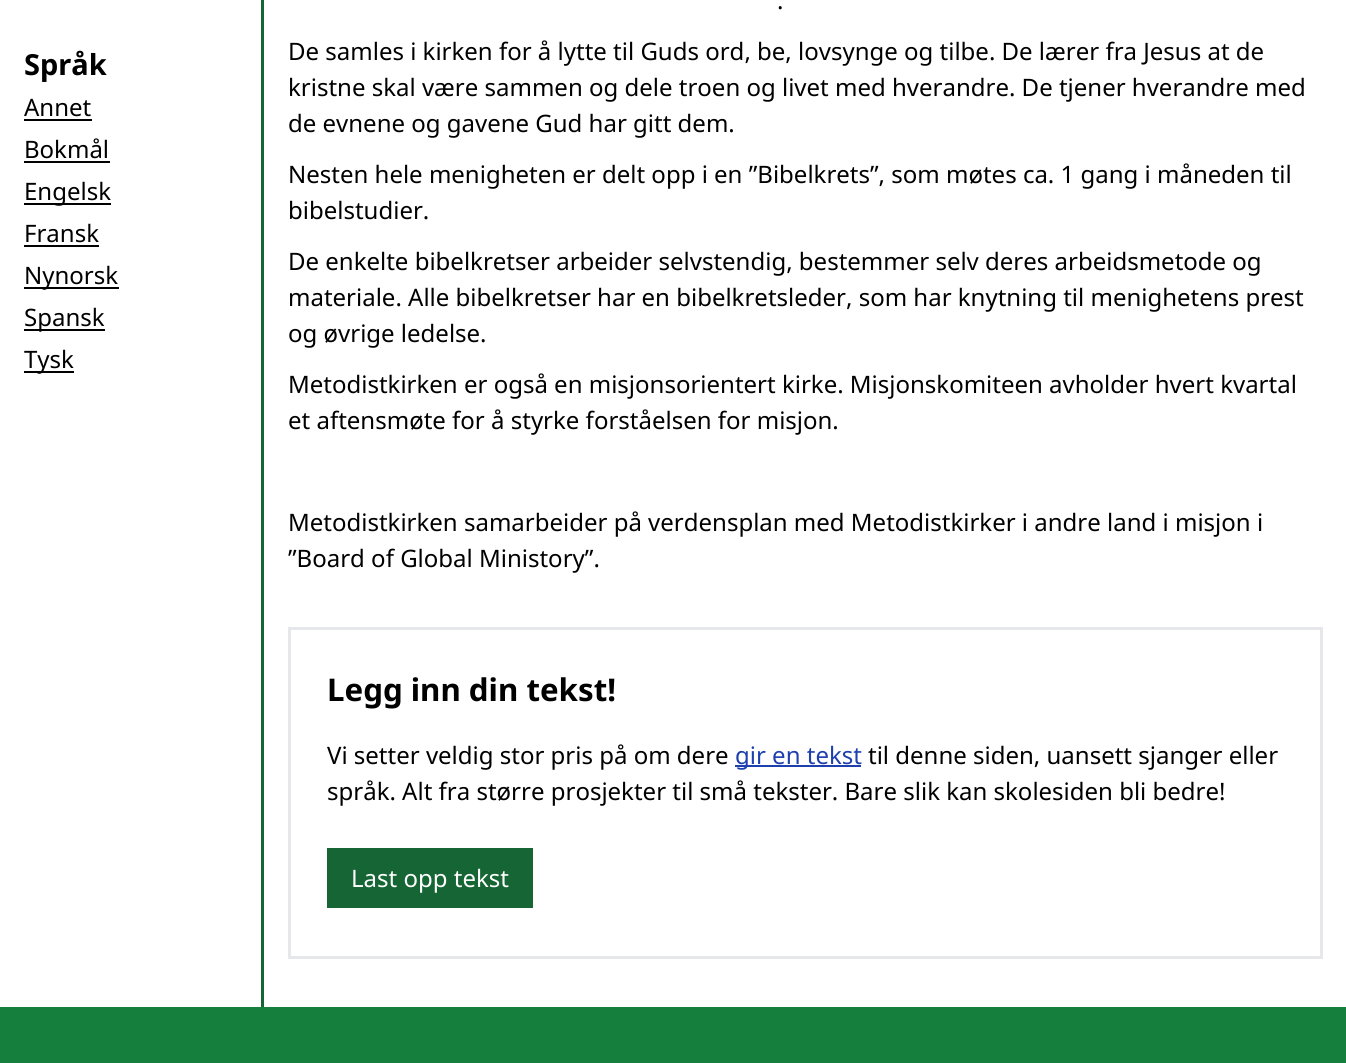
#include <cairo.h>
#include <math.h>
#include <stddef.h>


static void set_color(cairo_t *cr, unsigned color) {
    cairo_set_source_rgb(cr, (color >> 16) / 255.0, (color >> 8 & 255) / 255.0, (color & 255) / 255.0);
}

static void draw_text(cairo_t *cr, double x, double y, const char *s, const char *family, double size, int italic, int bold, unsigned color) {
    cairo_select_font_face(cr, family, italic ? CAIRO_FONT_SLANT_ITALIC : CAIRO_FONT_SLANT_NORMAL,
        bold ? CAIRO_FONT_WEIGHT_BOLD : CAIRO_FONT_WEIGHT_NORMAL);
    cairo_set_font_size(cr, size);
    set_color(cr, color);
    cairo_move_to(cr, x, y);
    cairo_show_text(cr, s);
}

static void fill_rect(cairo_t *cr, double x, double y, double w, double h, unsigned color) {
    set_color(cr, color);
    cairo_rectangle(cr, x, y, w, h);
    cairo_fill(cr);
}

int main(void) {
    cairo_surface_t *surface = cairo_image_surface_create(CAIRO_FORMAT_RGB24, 1346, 1063);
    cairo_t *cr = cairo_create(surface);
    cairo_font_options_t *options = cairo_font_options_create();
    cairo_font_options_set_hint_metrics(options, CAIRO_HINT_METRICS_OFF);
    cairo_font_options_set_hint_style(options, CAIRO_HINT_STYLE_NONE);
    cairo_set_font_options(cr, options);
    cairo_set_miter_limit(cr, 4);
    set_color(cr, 0xFFFFFF);
    cairo_paint(cr);
    fill_rect(cr, 261, 0, 3, 1007, 0x166534);
    draw_text(cr, 24, 75, "Språk", "Noto Sans", 29, 0, 1, 0x000000);
    draw_text(cr, 24, 116, "Annet", "Noto Sans", 24, 0, 0, 0x000000);
    fill_rect(cr, 24, 119, 68, 2, 0x000000);
    draw_text(cr, 24, 158, "Bokmål", "Noto Sans", 24, 0, 0, 0x000000);
    fill_rect(cr, 24, 161, 86, 2, 0x000000);
    fill_rect(cr, 24, 203, 87, 2, 0x000000);
    draw_text(cr, 24, 200, "Engelsk", "Noto Sans", 24, 0, 0, 0x000000);
    draw_text(cr, 24, 242, "Fransk", "Noto Sans", 24, 0, 0, 0x000000);
    fill_rect(cr, 24, 245, 75, 2, 0x000000);
    fill_rect(cr, 24, 287, 95, 2, 0x000000);
    draw_text(cr, 24, 284, "Nynorsk", "Noto Sans", 24, 0, 0, 0x000000);
    fill_rect(cr, 24, 329, 81, 2, 0x000000);
    draw_text(cr, 24, 326, "Spansk", "Noto Sans", 24, 0, 0, 0x000000);
    fill_rect(cr, 24, 371, 50, 2, 0x000000);
    draw_text(cr, 24, 368, "Tysk", "Noto Sans", 24, 0, 0, 0x000000);
    draw_text(cr, 777, 9, ".", "Noto Sans", 24, 0, 0, 0x000000);
    draw_text(cr, 288, 60, "De samles i kirken for å lytte til Guds ord, be, lovsynge og tilbe. De lærer fra Jesus at de", "Noto Sans", 24, 0, 0, 0x000000);
    draw_text(cr, 288, 96, "kristne skal være sammen og dele troen og livet med hverandre. De tjener hverandre med", "Noto Sans", 24, 0, 0, 0x000000);
    draw_text(cr, 288, 132, "de evnene og gavene Gud har gitt dem.", "Noto Sans", 24, 0, 0, 0x000000);
    draw_text(cr, 288, 183, "Nesten hele menigheten er delt opp i en ”Bibelkrets”, som møtes ca. 1 gang i måneden til", "Noto Sans", 24, 0, 0, 0x000000);
    draw_text(cr, 288, 219, "bibelstudier.", "Noto Sans", 24, 0, 0, 0x000000);
    draw_text(cr, 288, 270, "De enkelte bibelkretser arbeider selvstendig, bestemmer selv deres arbeidsmetode og", "Noto Sans", 24, 0, 0, 0x000000);
    draw_text(cr, 288, 306, "materiale. Alle bibelkretser har en bibelkretsleder, som har knytning til menighetens prest", "Noto Sans", 24, 0, 0, 0x000000);
    draw_text(cr, 288, 342, "og øvrige ledelse.", "Noto Sans", 24, 0, 0, 0x000000);
    draw_text(cr, 288, 393, "Metodistkirken er også en misjonsorientert kirke. Misjonskomiteen avholder hvert kvartal", "Noto Sans", 24, 0, 0, 0x000000);
    draw_text(cr, 288, 429, "et aftensmøte for å styrke forståelsen for misjon.", "Noto Sans", 24, 0, 0, 0x000000);
    draw_text(cr, 288, 531, "Metodistkirken samarbeider på verdensplan med Metodistkirker i andre land i misjon i", "Noto Sans", 24, 0, 0, 0x000000);
    draw_text(cr, 288, 567, "”Board of Global Ministory”.", "Noto Sans", 24, 0, 0, 0x000000);
    cairo_rectangle(cr, 289.5, 628.5, 1032, 329);
    set_color(cr, 0xE5E7EB);
    cairo_set_line_width(cr, 3);
    cairo_stroke(cr);
    draw_text(cr, 327, 701, "Legg inn din tekst!", "Noto Sans", 31.25, 0, 1, 0x000000);
    draw_text(cr, 327, 764, "Vi setter veldig stor pris på om dere", "Noto Sans", 24, 0, 0, 0x000000);
    fill_rect(cr, 735, 765, 126, 2, 0x1E40AF);
    draw_text(cr, 735, 764, "gir en tekst", "Noto Sans", 24, 0, 0, 0x1E40AF);
    draw_text(cr, 868, 764, "til denne siden, uansett sjanger eller", "Noto Sans", 24, 0, 0, 0x000000);
    draw_text(cr, 327, 800, "språk. Alt fra større prosjekter til små tekster. Bare slik kan skolesiden bli bedre!", "Noto Sans", 24, 0, 0, 0x000000);
    fill_rect(cr, 327, 848, 206, 60, 0x166534);
    draw_text(cr, 351, 887, "Last opp tekst", "Noto Sans", 24, 0, 0, 0xFFFFFF);
    fill_rect(cr, 0, 1007, 1346, 56, 0x15803D);
    cairo_surface_write_to_png(surface, "output.png");
    cairo_font_options_destroy(options);
    cairo_destroy(cr);
    cairo_surface_destroy(surface);
    return 0;
}
